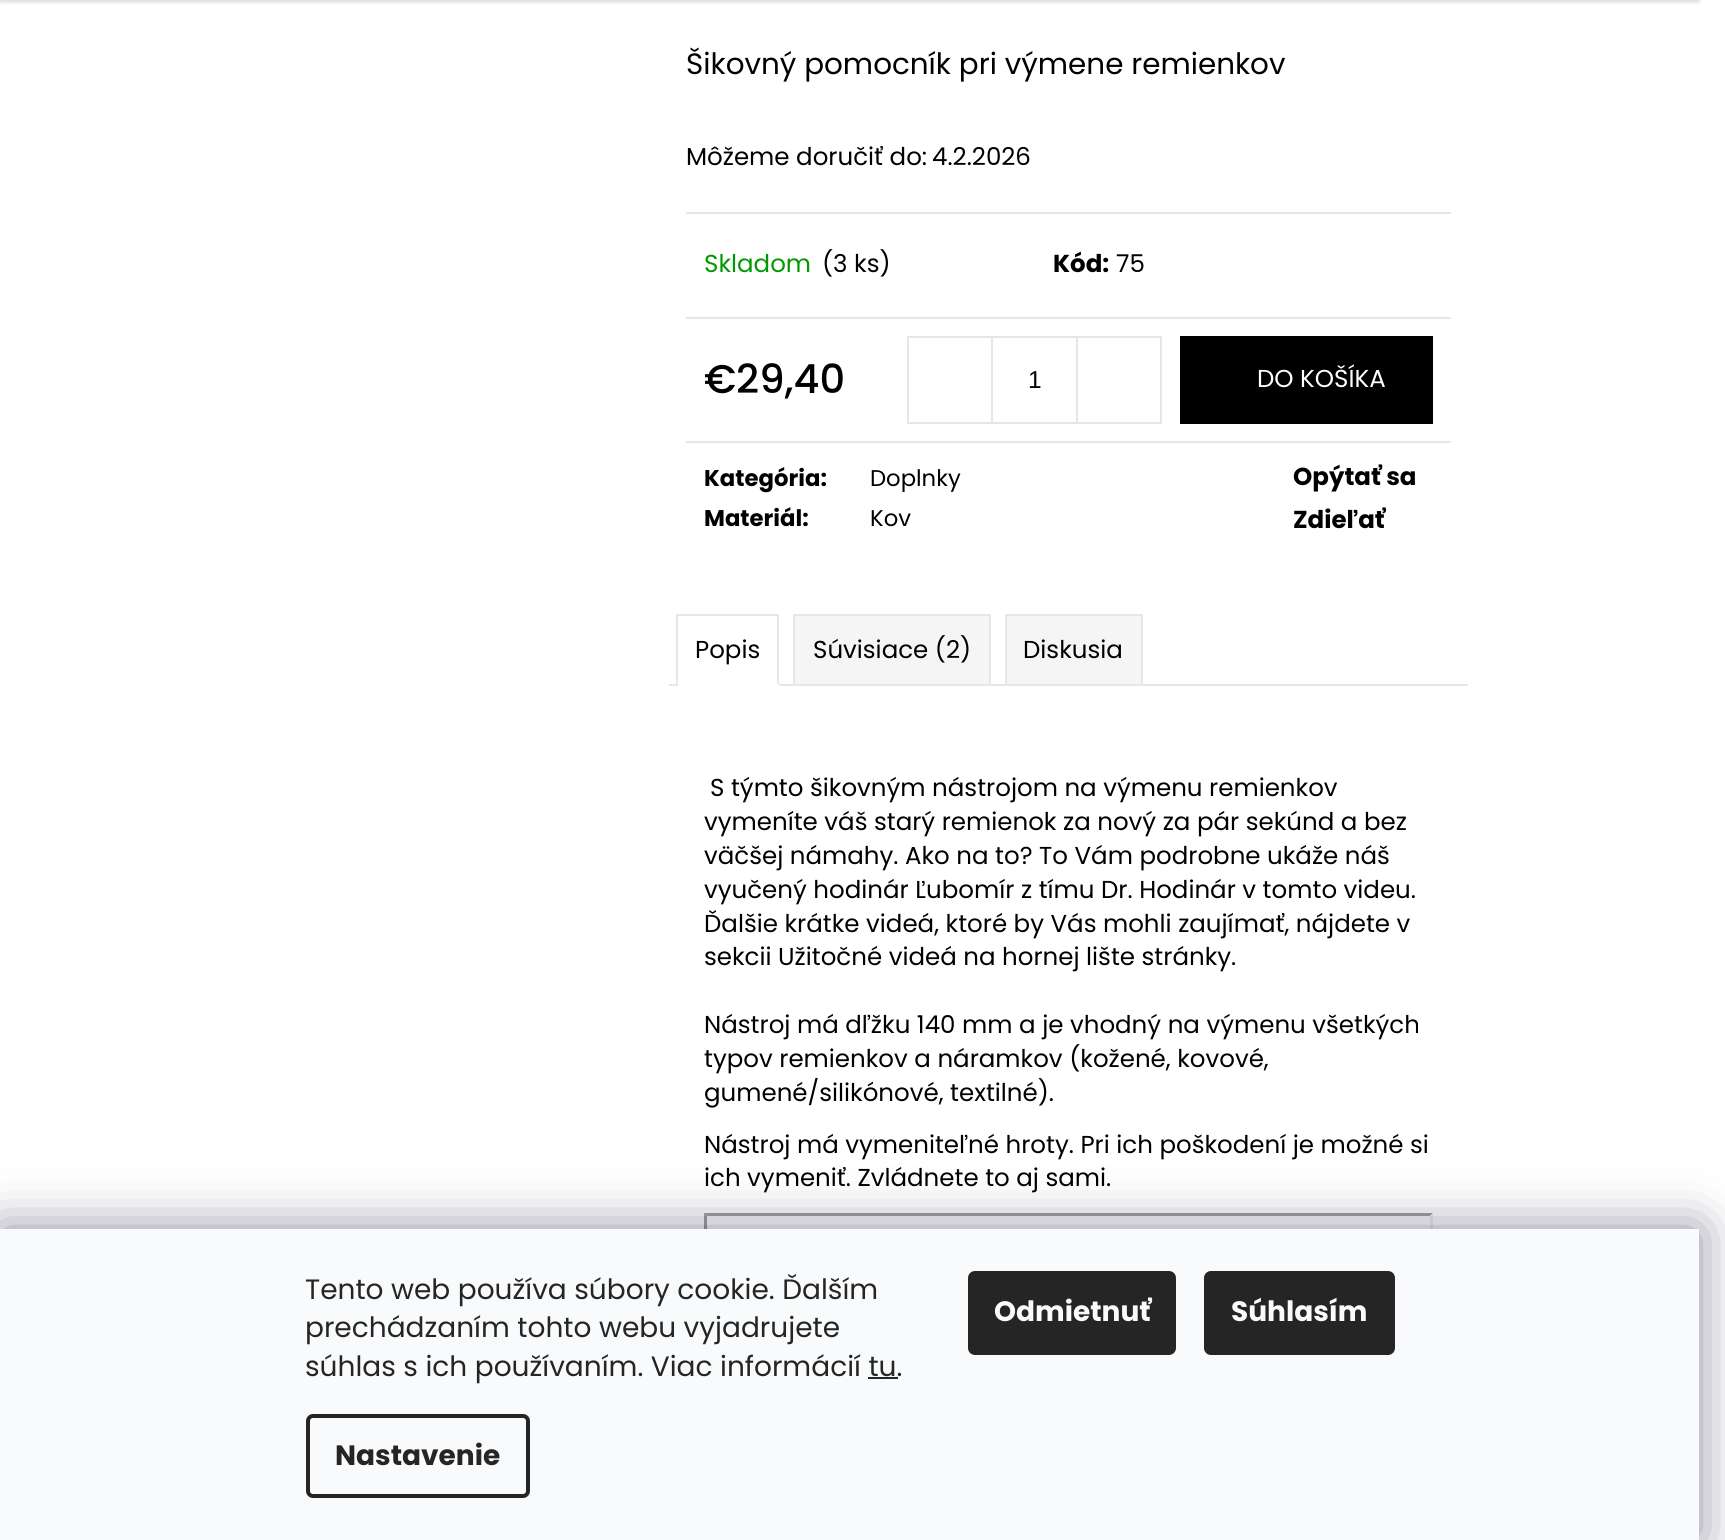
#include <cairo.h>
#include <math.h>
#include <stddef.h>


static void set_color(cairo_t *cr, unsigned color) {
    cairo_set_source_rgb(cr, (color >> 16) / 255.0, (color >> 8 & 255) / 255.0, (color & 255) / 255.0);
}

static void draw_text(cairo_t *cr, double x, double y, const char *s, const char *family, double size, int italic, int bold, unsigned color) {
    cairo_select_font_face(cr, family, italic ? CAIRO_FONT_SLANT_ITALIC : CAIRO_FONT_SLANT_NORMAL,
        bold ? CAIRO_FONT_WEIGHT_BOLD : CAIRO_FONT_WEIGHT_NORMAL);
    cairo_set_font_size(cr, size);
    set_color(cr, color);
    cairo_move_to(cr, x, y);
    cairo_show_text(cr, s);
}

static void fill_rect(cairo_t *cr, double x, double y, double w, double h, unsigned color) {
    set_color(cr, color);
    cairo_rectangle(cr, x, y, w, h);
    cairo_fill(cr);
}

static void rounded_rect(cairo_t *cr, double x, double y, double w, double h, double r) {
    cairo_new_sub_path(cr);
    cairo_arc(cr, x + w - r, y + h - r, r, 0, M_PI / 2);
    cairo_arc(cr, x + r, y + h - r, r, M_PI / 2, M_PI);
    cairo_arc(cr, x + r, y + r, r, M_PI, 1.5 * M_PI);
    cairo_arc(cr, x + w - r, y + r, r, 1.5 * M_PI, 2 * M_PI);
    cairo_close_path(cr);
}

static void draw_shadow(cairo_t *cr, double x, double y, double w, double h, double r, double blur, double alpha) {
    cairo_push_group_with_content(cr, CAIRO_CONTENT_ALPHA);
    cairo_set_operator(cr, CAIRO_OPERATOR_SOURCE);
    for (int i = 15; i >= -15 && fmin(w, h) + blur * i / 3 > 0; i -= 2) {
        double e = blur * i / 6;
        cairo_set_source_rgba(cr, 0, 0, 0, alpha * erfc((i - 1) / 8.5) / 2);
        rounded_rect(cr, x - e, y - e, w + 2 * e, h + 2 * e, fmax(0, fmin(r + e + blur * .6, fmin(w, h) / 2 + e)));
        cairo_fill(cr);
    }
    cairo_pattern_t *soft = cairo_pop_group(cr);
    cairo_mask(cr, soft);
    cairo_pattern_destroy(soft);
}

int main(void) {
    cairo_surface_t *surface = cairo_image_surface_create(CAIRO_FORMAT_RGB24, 1725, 1540);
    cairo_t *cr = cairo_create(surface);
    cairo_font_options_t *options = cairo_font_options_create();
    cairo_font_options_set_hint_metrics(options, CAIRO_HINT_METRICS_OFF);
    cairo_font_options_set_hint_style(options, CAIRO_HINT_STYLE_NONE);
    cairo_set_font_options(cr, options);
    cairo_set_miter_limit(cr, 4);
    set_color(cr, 0xFFFFFF);
    cairo_paint(cr);
    set_color(cr, 0x000000);
    draw_shadow(cr, 0, -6, 1699, 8, 0, 2, 0.16);
    draw_text(cr, 686, 74, "Šikovný pomocník pri výmene remienkov", "Poppins", 29.4, 0, 0, 0x000000);
    draw_text(cr, 686, 165, "Môžeme doručiť do:", "Poppins", 24.5, 0, 0, 0x000000);
    draw_text(cr, 932, 165, "4.2.2026", "Poppins", 24.5, 0, 0, 0x000000);
    fill_rect(cr, 686, 212, 765, 2, 0xE7E7E7);
    fill_rect(cr, 686, 317, 765, 2, 0xE7E7E7);
    draw_text(cr, 704, 272, "Skladom", "Poppins", 24.5, 0, 0, 0x009901);
    draw_text(cr, 822, 272, "(3 ks)", "Poppins", 24.5, 0, 0, 0x000000);
    draw_text(cr, 1053, 272, "Kód:", "Poppins", 24.5, 0, 1, 0x000000);
    draw_text(cr, 1116, 272, "75", "Poppins", 24.5, 0, 0, 0x000000);
    fill_rect(cr, 686, 441, 765, 2, 0xE7E7E7);
    draw_text(cr, 704, 393, "€29,40", "Poppins Medium", 40, 0, 0, 0x000000);
    cairo_rectangle(cr, 908, 337, 253, 86);
    set_color(cr, 0xE6E6E6);
    cairo_stroke(cr);
    fill_rect(cr, 991, 338, 2, 84, 0xE6E6E6);
    draw_text(cr, 1028, 388, "1", "Liberation Sans", 24.5, 0, 0, 0x000000);
    fill_rect(cr, 1076, 338, 2, 84, 0xE6E6E6);
    fill_rect(cr, 1180, 336, 253, 88, 0x000000);
    draw_text(cr, 1257, 387, "DO KOŠÍKA", "Poppins", 24.5, 0, 0, 0xFFFFFF);
    draw_text(cr, 704, 486, "Kategória:", "Poppins", 22.75, 0, 1, 0x000000);
    draw_text(cr, 870, 486, "Doplnky", "Poppins", 22.75, 0, 0, 0x000000);
    draw_text(cr, 704, 526, "Materiál:", "Poppins", 22.75, 0, 1, 0x000000);
    draw_text(cr, 870, 526, "Kov", "Poppins", 22.75, 0, 0, 0x000000);
    draw_text(cr, 1293, 485, "Opýtať sa", "Poppins", 24.5, 0, 1, 0x000000);
    draw_text(cr, 1293, 528, "Zdieľať", "Poppins", 24.5, 0, 1, 0x000000);
    fill_rect(cr, 669, 684, 799, 2, 0xE7E7E7);
    fill_rect(cr, 676, 614, 103, 2, 0xE7E7E7);
    fill_rect(cr, 777, 614, 2, 72, 0xE7E7E7);
    fill_rect(cr, 676, 684, 103, 2, 0xFFFFFF);
    fill_rect(cr, 676, 614, 2, 72, 0xE7E7E7);
    draw_text(cr, 695, 658, "Popis", "Poppins", 24.5, 0, 0, 0x000000);
    set_color(cr, 0xF5F5F5);
    cairo_rectangle(cr, 794, 615, 196, 70);
    cairo_fill_preserve(cr);
    set_color(cr, 0xE7E7E7);
    cairo_stroke(cr);
    draw_text(cr, 813, 658, "Súvisiace (2)", "Poppins", 24.5, 0, 0, 0x000000);
    set_color(cr, 0xF5F5F5);
    cairo_rectangle(cr, 1006, 615, 136, 70);
    cairo_fill_preserve(cr);
    set_color(cr, 0xE7E7E7);
    cairo_stroke(cr);
    draw_text(cr, 1023, 658, "Diskusia", "Poppins", 24.5, 0, 0, 0x000000);
    draw_text(cr, 710, 796, "S týmto šikovným nástrojom na výmenu remienkov", "Poppins", 24.5, 0, 0, 0x000000);
    draw_text(cr, 704, 830, "vymeníte váš starý remienok za nový za pár sekúnd a bez", "Poppins", 24.5, 0, 0, 0x000000);
    draw_text(cr, 704, 864, "väčšej námahy. Ako na to? To Vám podrobne ukáže náš", "Poppins", 24.5, 0, 0, 0x000000);
    draw_text(cr, 704, 898, "vyučený hodinár Ľubomír z tímu Dr. Hodinár v tomto videu.", "Poppins", 24.5, 0, 0, 0x000000);
    draw_text(cr, 704, 932, "Ďalšie krátke videá, ktoré by Vás mohli zaujímať, nájdete v", "Poppins", 24.5, 0, 0, 0x000000);
    draw_text(cr, 704, 965, "sekcii Užitočné videá na hornej lište stránky.", "Poppins", 24.5, 0, 0, 0x000000);
    draw_text(cr, 704, 1033, "Nástroj má dľžku 140 mm a je vhodný na výmenu všetkých", "Poppins", 24.5, 0, 0, 0x000000);
    draw_text(cr, 704, 1067, "typov remienkov a náramkov (kožené, kovové,", "Poppins", 24.5, 0, 0, 0x000000);
    draw_text(cr, 704, 1101, "gumené/silikónové, textilné).", "Poppins", 24.5, 0, 0, 0x000000);
    draw_text(cr, 704, 1153, "Nástroj má vymeniteľné hroty. Pri ich poškodení je možné si", "Poppins", 24.5, 0, 0, 0x000000);
    draw_text(cr, 704, 1186, "ich vymeniť. Zvládnete to aj sami.", "Poppins", 24.5, 0, 0, 0x000000);
    set_color(cr, 0x9F9F9F);
    cairo_new_path(cr);
    cairo_move_to(cr, 704, 1213);
    cairo_line_to(cr, 1433, 1213);
    cairo_line_to(cr, 1430, 1216);
    cairo_line_to(cr, 707, 1216);
    cairo_close_path(cr);
    cairo_fill(cr);
    cairo_new_path(cr);
    cairo_move_to(cr, 704, 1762);
    cairo_line_to(cr, 704, 1213);
    cairo_line_to(cr, 707, 1216);
    cairo_line_to(cr, 707, 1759);
    cairo_close_path(cr);
    cairo_fill(cr);
    set_color(cr, 0xEEEEEE);
    cairo_new_path(cr);
    cairo_move_to(cr, 1433, 1213);
    cairo_line_to(cr, 1433, 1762);
    cairo_line_to(cr, 1430, 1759);
    cairo_line_to(cr, 1430, 1216);
    cairo_close_path(cr);
    cairo_fill(cr);
    set_color(cr, 0x1B1939);
    draw_shadow(cr, 0, 1229, 1699, 311, 0, 26, 0.5);
    fill_rect(cr, 0, 1229, 1699, 311, 0xF8FAFB);
    draw_text(cr, 305, 1299, "Tento web používa súbory cookie. Ďalším", "Poppins", 28, 0, 0, 0x252525);
    draw_text(cr, 305, 1337, "prechádzaním tohto webu vyjadrujete", "Poppins", 28, 0, 0, 0x252525);
    draw_text(cr, 305, 1376, "súhlas s ich používaním. Viac informácií tu.", "Poppins", 28, 0, 0, 0x252525);
    fill_rect(cr, 868, 1377, 30, 2, 0x252525);
    rounded_rect(cr, 308, 1416, 220, 80, 5);
    cairo_set_line_width(cr, 4);
    cairo_stroke(cr);
    draw_text(cr, 335, 1465, "Nastavenie", "Poppins", 28, 0, 1, 0x252525);
    rounded_rect(cr, 968, 1271, 208, 84, 7);
    cairo_fill(cr);
    draw_text(cr, 994, 1321, "Odmietnuť", "Poppins", 28, 0, 1, 0xF8FAFB);
    set_color(cr, 0x252525);
    rounded_rect(cr, 1204, 1271, 191, 84, 7);
    cairo_fill(cr);
    draw_text(cr, 1231, 1321, "Súhlasím", "Poppins", 28, 0, 1, 0xF8FAFB);
    cairo_surface_write_to_png(surface, "output.png");
    cairo_font_options_destroy(options);
    cairo_destroy(cr);
    cairo_surface_destroy(surface);
    return 0;
}
